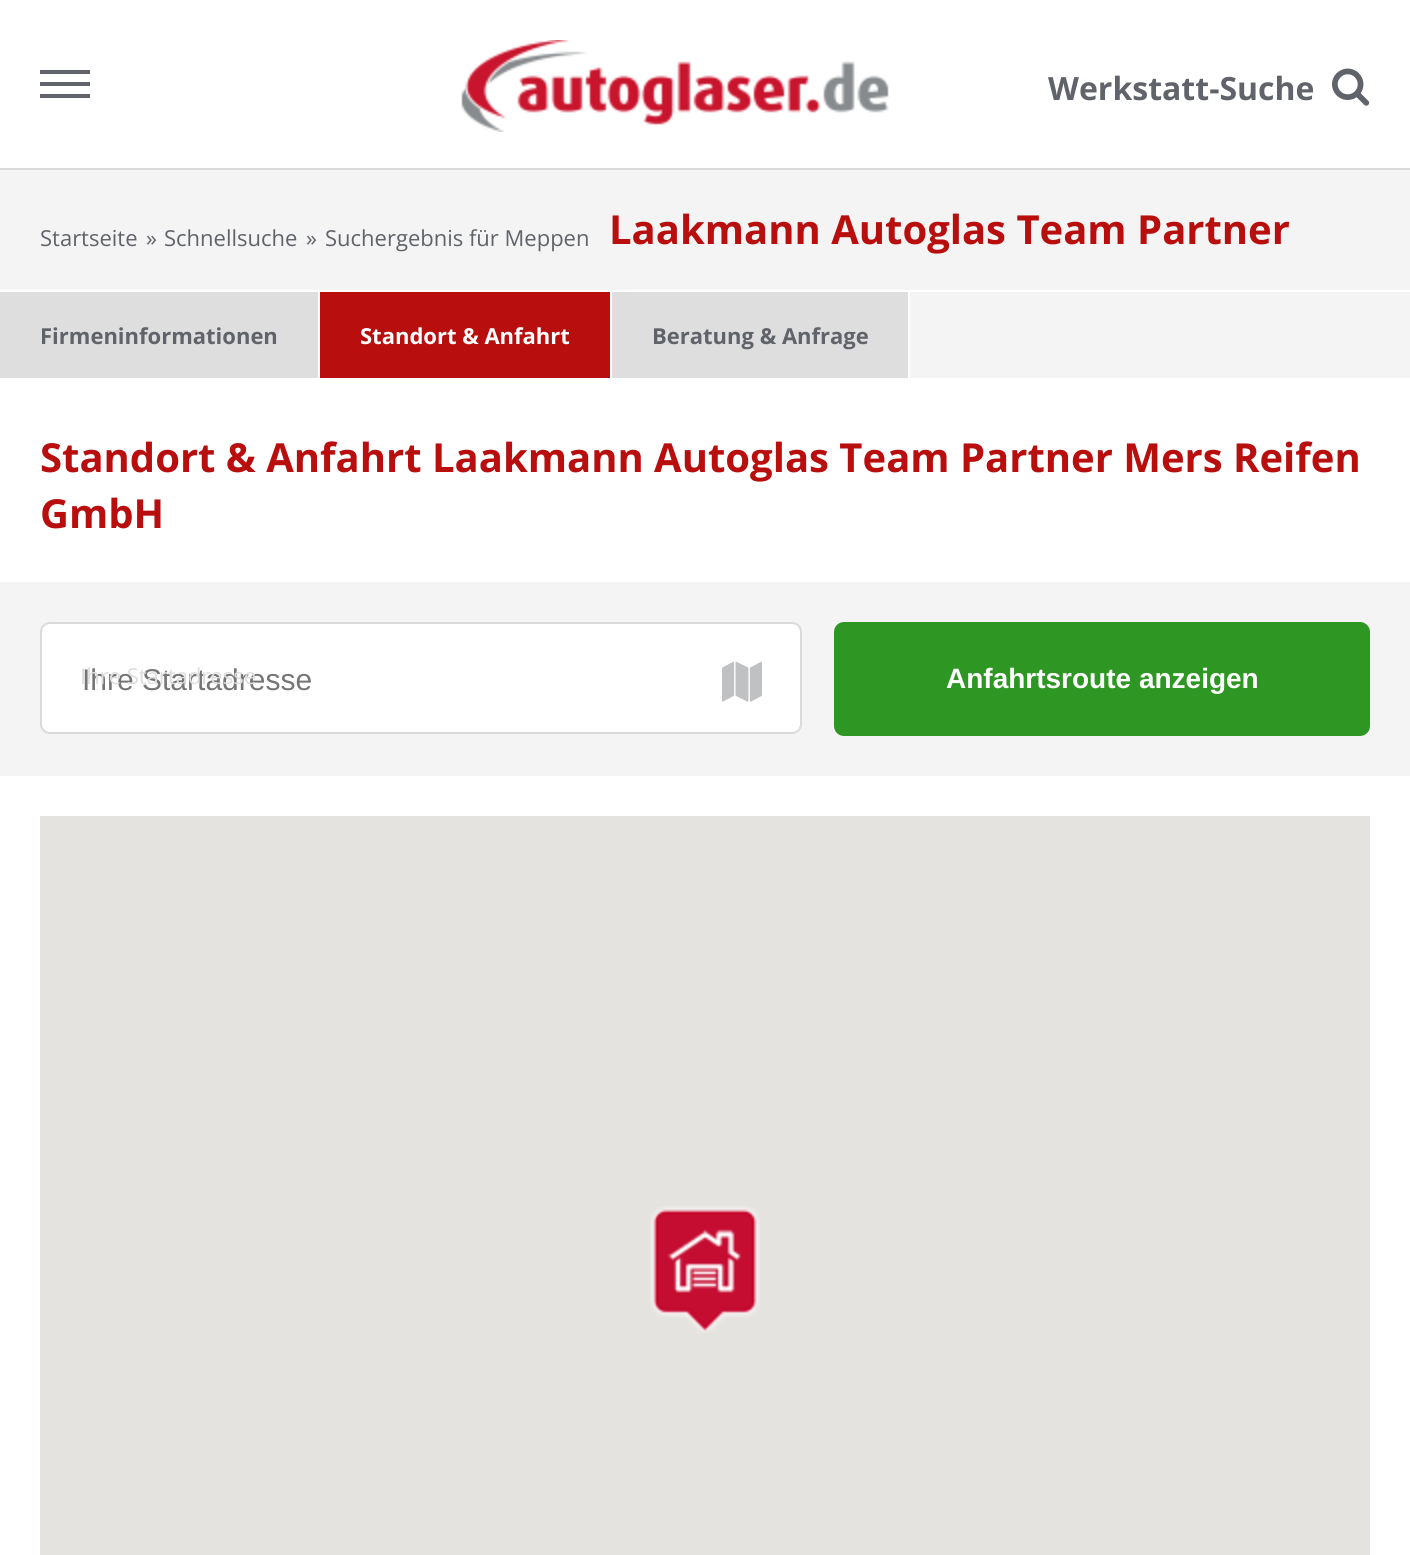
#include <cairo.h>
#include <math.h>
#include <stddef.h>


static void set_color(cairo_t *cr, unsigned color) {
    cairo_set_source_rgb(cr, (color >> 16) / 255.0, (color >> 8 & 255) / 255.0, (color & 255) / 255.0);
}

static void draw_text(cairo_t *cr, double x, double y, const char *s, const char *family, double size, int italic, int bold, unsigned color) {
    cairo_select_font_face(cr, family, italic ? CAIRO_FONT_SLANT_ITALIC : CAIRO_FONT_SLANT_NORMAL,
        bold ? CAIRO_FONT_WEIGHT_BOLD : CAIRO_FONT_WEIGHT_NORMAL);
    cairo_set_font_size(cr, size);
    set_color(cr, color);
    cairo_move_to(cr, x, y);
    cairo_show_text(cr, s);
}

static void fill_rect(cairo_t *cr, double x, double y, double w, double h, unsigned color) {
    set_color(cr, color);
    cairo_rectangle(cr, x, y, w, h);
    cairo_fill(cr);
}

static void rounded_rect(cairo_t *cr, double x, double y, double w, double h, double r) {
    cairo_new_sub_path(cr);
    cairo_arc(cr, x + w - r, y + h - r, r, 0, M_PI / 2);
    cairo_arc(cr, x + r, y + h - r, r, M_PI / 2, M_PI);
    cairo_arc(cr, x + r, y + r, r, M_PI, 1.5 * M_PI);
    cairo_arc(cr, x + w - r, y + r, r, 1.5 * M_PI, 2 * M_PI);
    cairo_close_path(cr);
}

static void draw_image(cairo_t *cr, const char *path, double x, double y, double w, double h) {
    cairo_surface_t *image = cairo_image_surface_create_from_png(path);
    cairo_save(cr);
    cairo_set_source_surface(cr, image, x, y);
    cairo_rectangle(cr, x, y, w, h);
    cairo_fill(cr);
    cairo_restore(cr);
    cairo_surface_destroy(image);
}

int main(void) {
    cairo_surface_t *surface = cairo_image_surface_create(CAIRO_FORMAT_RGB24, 1410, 1555);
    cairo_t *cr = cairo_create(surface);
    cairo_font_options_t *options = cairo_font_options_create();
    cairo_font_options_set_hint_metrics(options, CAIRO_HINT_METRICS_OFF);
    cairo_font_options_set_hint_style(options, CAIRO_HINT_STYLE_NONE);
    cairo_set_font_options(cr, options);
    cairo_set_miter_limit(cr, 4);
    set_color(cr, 0xFFFFFF);
    cairo_paint(cr);
    fill_rect(cr, 0, 168, 1410, 2, 0xDADADA);
    fill_rect(cr, 40, 70, 50, 4, 0x60636A);
    fill_rect(cr, 40, 82, 50, 4, 0x60636A);
    fill_rect(cr, 40, 94, 50, 4, 0x60636A);
    draw_image(cr, "assets/img1.png", 461, 40, 428, 92);
    draw_text(cr, 1048, 100, "Werkstatt-Suche", "Open Sans", 32, 0, 1, 0x60636A);
    draw_image(cr, "assets/img2.png", 1332, 68, 38, 38);
    fill_rect(cr, 0, 170, 1410, 120, 0xF4F4F4);
    draw_text(cr, 40, 246, "Startseite", "Open Sans", 22, 0, 0, 0x60636A);
    draw_text(cr, 146, 246, "»", "Open Sans", 22, 0, 0, 0x60636A);
    draw_text(cr, 164, 246, "Schnellsuche", "Open Sans", 22, 0, 0, 0x60636A);
    draw_text(cr, 306, 246, "»", "Open Sans", 22, 0, 0, 0x60636A);
    draw_text(cr, 325, 246, "Suchergebnis für Meppen", "Open Sans", 22, 0, 0, 0x60636A);
    draw_text(cr, 609, 244, "Laakmann Autoglas Team Partner", "Open Sans", 40, 0, 1, 0xB90E0E);
    fill_rect(cr, 910, 292, 500, 86, 0xF4F4F4);
    fill_rect(cr, 0, 292, 318, 86, 0xDEDEDE);
    draw_text(cr, 40, 344, "Firmeninformationen", "Open Sans", 22, 0, 1, 0x60636A);
    fill_rect(cr, 320, 292, 290, 86, 0xB90E0E);
    draw_text(cr, 360, 344, "Standort & Anfahrt", "Open Sans", 22, 0, 1, 0xFFFFFF);
    fill_rect(cr, 612, 292, 296, 86, 0xDEDEDE);
    draw_text(cr, 652, 344, "Beratung & Anfrage", "Open Sans", 22, 0, 1, 0x60636A);
    draw_text(cr, 40, 472, "Standort & Anfahrt Laakmann Autoglas Team Partner Mers Reifen", "Open Sans", 40, 0, 1, 0xB90E0E);
    draw_text(cr, 40, 528, "GmbH", "Open Sans", 40, 0, 1, 0xB90E0E);
    fill_rect(cr, 0, 582, 1410, 194, 0xF4F4F4);
    set_color(cr, 0xFFFFFF);
    rounded_rect(cr, 41, 623, 760, 110, 9);
    cairo_fill_preserve(cr);
    set_color(cr, 0xDADADA);
    cairo_stroke(cr);
    draw_text(cr, 82, 690, "Ihre Startadresse", "Liberation Sans", 30, 0, 0, 0x757575);
    draw_text(cr, 80, 684, "Ihre Startadresse", "Open Sans", 22, 0, 0, 0xDEDEDE);
    draw_image(cr, "assets/img3.png", 722, 661, 40, 41);
    set_color(cr, 0x2E9623);
    rounded_rect(cr, 834, 622, 536, 114, 10);
    cairo_fill(cr);
    draw_text(cr, 946, 688, "Anfahrtsroute anzeigen", "Liberation Sans", 28, 0, 1, 0xFFFFFF);
    fill_rect(cr, 40, 816, 1330, 739, 0xE5E3DF);
    draw_image(cr, "assets/img4.png", 650, 1206, 110, 127);
    cairo_surface_write_to_png(surface, "output.png");
    cairo_font_options_destroy(options);
    cairo_destroy(cr);
    cairo_surface_destroy(surface);
    return 0;
}
